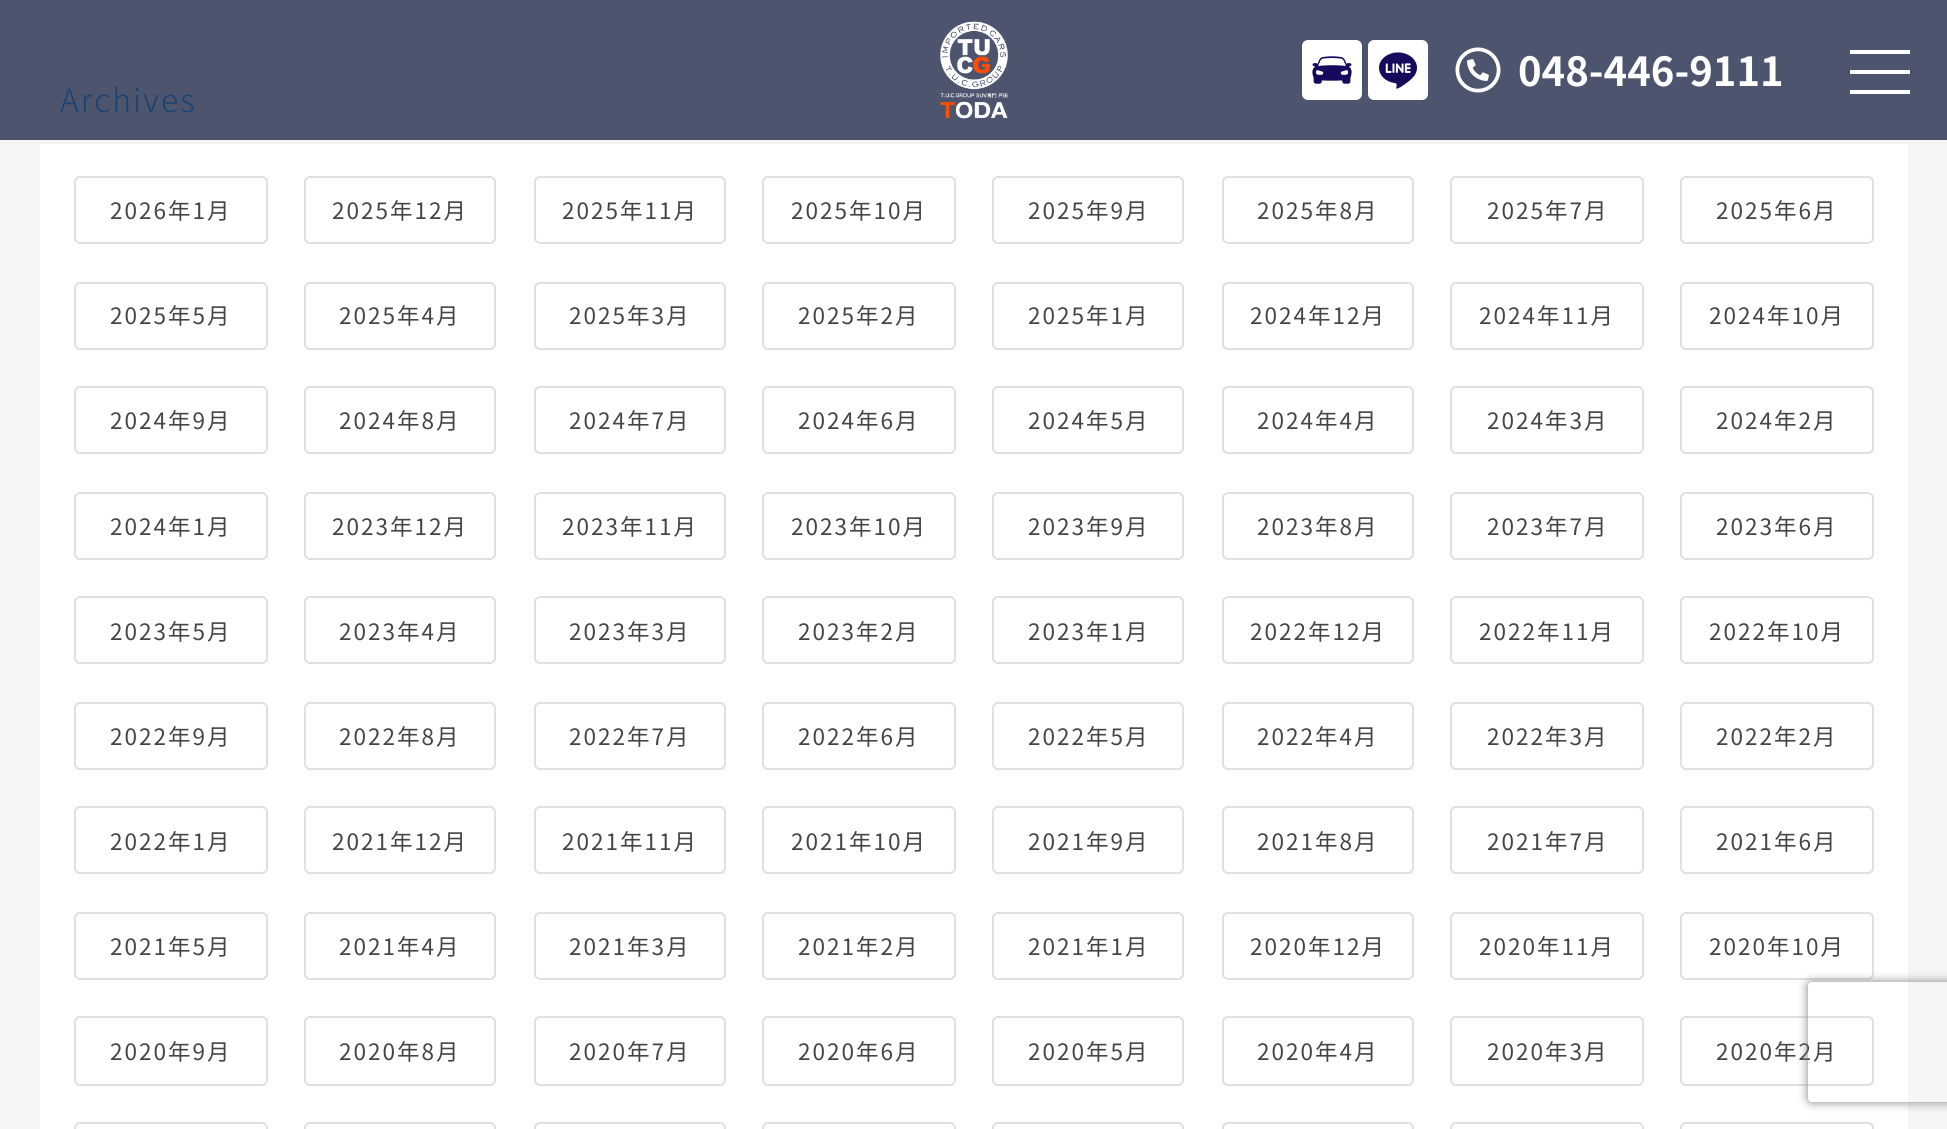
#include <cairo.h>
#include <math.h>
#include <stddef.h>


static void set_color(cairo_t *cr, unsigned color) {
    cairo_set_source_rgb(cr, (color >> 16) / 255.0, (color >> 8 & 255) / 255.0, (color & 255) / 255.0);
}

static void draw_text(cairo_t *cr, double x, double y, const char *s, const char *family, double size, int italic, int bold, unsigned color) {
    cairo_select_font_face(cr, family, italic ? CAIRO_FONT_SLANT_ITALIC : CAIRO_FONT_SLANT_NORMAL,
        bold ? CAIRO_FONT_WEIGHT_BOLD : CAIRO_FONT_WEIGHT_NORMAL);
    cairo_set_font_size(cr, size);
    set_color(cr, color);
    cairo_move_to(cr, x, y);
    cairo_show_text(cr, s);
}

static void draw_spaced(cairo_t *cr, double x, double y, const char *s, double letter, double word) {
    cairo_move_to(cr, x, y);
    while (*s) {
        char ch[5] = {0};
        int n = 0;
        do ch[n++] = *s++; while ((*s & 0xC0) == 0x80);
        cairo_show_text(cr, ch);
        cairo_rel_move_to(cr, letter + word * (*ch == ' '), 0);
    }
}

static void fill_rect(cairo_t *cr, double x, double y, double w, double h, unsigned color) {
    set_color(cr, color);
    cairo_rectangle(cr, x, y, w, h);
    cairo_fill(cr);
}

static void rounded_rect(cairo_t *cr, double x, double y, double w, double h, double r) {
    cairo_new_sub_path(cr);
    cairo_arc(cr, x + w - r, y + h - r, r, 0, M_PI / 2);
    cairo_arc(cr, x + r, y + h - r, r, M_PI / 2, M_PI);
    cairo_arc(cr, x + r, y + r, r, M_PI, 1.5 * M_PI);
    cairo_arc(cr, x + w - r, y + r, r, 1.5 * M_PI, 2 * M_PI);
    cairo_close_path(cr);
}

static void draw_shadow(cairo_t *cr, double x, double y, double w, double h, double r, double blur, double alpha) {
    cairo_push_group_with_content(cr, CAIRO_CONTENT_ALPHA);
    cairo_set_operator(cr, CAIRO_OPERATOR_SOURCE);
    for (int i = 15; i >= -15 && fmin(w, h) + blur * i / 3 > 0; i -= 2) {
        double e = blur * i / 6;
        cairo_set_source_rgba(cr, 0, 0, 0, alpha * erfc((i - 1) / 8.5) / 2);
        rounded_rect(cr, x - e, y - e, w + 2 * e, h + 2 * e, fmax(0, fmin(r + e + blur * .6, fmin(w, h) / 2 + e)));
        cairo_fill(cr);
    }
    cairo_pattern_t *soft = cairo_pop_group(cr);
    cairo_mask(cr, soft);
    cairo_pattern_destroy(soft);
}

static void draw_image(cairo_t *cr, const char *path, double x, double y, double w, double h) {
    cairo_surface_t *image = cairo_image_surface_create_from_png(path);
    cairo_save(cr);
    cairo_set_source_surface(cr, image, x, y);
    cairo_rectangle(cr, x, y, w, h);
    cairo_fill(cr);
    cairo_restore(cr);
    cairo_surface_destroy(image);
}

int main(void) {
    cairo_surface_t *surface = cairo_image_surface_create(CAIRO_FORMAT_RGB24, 1947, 1129);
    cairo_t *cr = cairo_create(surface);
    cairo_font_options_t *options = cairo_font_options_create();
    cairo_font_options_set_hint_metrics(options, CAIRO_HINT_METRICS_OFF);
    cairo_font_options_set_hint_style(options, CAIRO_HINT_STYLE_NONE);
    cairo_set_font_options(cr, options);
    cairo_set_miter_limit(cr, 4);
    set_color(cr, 0xF5F5F5);
    cairo_paint(cr);
    fill_rect(cr, 0, 0, 1947, 140, 0x4C546E);
    draw_image(cr, "assets/img1.png", 940, 21, 68, 98);
    set_color(cr, 0xFFFFFF);
    rounded_rect(cr, 1302, 40, 60, 60, 6);
    cairo_fill(cr);
    draw_image(cr, "assets/img2.png", 1312, 56, 40, 28);
    rounded_rect(cr, 1368, 40, 60, 60, 6);
    cairo_fill(cr);
    draw_image(cr, "assets/img3.png", 1379, 52, 38, 37);
    draw_image(cr, "assets/img4.png", 1455, 47, 46, 46);
    draw_text(cr, 1518, 86, "048-446-9111", "Noto Sans JP", 40, 0, 1, 0xFFFFFF);
    fill_rect(cr, 1850, 50, 60, 4, 0xFFFFFF);
    fill_rect(cr, 1850, 70, 60, 4, 0xFFFFFF);
    fill_rect(cr, 1850, 90, 60, 4, 0xFFFFFF);
    cairo_select_font_face(cr, "Noto Sans JP Light", CAIRO_FONT_SLANT_NORMAL, CAIRO_FONT_WEIGHT_NORMAL);
    cairo_set_font_size(cr, 32);
    set_color(cr, 0x1B4270);
    draw_spaced(cr, 60, 112, "Archives", 2, 0);
    fill_rect(cr, 40, 144, 1868, 985, 0xFFFFFF);
    rounded_rect(cr, 75, 177, 192, 66, 5);
    set_color(cr, 0xE0E0E0);
    cairo_stroke(cr);
    cairo_select_font_face(cr, "Noto Sans JP", CAIRO_FONT_SLANT_NORMAL, CAIRO_FONT_WEIGHT_NORMAL);
    cairo_set_font_size(cr, 22.5);
    set_color(cr, 0x454545);
    draw_spaced(cr, 110, 219, "2026年1月", 2, 0);
    rounded_rect(cr, 305, 177, 190, 66, 5);
    set_color(cr, 0xE0E0E0);
    cairo_stroke(cr);
    set_color(cr, 0x454545);
    draw_spaced(cr, 332, 219, "2025年12月", 2, 0);
    rounded_rect(cr, 535, 177, 190, 66, 5);
    set_color(cr, 0xE0E0E0);
    cairo_stroke(cr);
    set_color(cr, 0x454545);
    draw_spaced(cr, 562, 219, "2025年11月", 2, 0);
    rounded_rect(cr, 763, 177, 192, 66, 5);
    set_color(cr, 0xE0E0E0);
    cairo_stroke(cr);
    set_color(cr, 0x454545);
    draw_spaced(cr, 791, 219, "2025年10月", 2, 0);
    rounded_rect(cr, 993, 177, 190, 66, 5);
    set_color(cr, 0xE0E0E0);
    cairo_stroke(cr);
    set_color(cr, 0x454545);
    draw_spaced(cr, 1028, 219, "2025年9月", 2, 0);
    rounded_rect(cr, 1223, 177, 190, 66, 5);
    set_color(cr, 0xE0E0E0);
    cairo_stroke(cr);
    set_color(cr, 0x454545);
    draw_spaced(cr, 1257, 219, "2025年8月", 2, 0);
    rounded_rect(cr, 1451, 177, 192, 66, 5);
    set_color(cr, 0xE0E0E0);
    cairo_stroke(cr);
    set_color(cr, 0x454545);
    draw_spaced(cr, 1487, 219, "2025年7月", 2, 0);
    rounded_rect(cr, 1681, 177, 192, 66, 5);
    set_color(cr, 0xE0E0E0);
    cairo_stroke(cr);
    set_color(cr, 0x454545);
    draw_spaced(cr, 1716, 219, "2025年6月", 2, 0);
    rounded_rect(cr, 75, 283, 192, 66, 5);
    set_color(cr, 0xE0E0E0);
    cairo_stroke(cr);
    set_color(cr, 0x454545);
    draw_spaced(cr, 110, 324, "2025年5月", 2, 0);
    rounded_rect(cr, 305, 283, 190, 66, 5);
    set_color(cr, 0xE0E0E0);
    cairo_stroke(cr);
    set_color(cr, 0x454545);
    draw_spaced(cr, 339, 324, "2025年4月", 2, 0);
    rounded_rect(cr, 535, 283, 190, 66, 5);
    set_color(cr, 0xE0E0E0);
    cairo_stroke(cr);
    set_color(cr, 0x454545);
    draw_spaced(cr, 569, 324, "2025年3月", 2, 0);
    rounded_rect(cr, 763, 283, 192, 66, 5);
    set_color(cr, 0xE0E0E0);
    cairo_stroke(cr);
    set_color(cr, 0x454545);
    draw_spaced(cr, 798, 324, "2025年2月", 2, 0);
    rounded_rect(cr, 993, 283, 190, 66, 5);
    set_color(cr, 0xE0E0E0);
    cairo_stroke(cr);
    set_color(cr, 0x454545);
    draw_spaced(cr, 1028, 324, "2025年1月", 2, 0);
    rounded_rect(cr, 1223, 283, 190, 66, 5);
    set_color(cr, 0xE0E0E0);
    cairo_stroke(cr);
    set_color(cr, 0x454545);
    draw_spaced(cr, 1250, 324, "2024年12月", 2, 0);
    rounded_rect(cr, 1451, 283, 192, 66, 5);
    set_color(cr, 0xE0E0E0);
    cairo_stroke(cr);
    set_color(cr, 0x454545);
    draw_spaced(cr, 1479, 324, "2024年11月", 2, 0);
    rounded_rect(cr, 1681, 283, 192, 66, 5);
    set_color(cr, 0xE0E0E0);
    cairo_stroke(cr);
    set_color(cr, 0x454545);
    draw_spaced(cr, 1709, 324, "2024年10月", 2, 0);
    rounded_rect(cr, 75, 387, 192, 66, 5);
    set_color(cr, 0xE0E0E0);
    cairo_stroke(cr);
    set_color(cr, 0x454545);
    draw_spaced(cr, 110, 429, "2024年9月", 2, 0);
    rounded_rect(cr, 305, 387, 190, 66, 5);
    set_color(cr, 0xE0E0E0);
    cairo_stroke(cr);
    set_color(cr, 0x454545);
    draw_spaced(cr, 339, 429, "2024年8月", 2, 0);
    rounded_rect(cr, 535, 387, 190, 66, 5);
    set_color(cr, 0xE0E0E0);
    cairo_stroke(cr);
    set_color(cr, 0x454545);
    draw_spaced(cr, 569, 429, "2024年7月", 2, 0);
    rounded_rect(cr, 763, 387, 192, 66, 5);
    set_color(cr, 0xE0E0E0);
    cairo_stroke(cr);
    set_color(cr, 0x454545);
    draw_spaced(cr, 798, 429, "2024年6月", 2, 0);
    rounded_rect(cr, 993, 387, 190, 66, 5);
    set_color(cr, 0xE0E0E0);
    cairo_stroke(cr);
    set_color(cr, 0x454545);
    draw_spaced(cr, 1028, 429, "2024年5月", 2, 0);
    rounded_rect(cr, 1223, 387, 190, 66, 5);
    set_color(cr, 0xE0E0E0);
    cairo_stroke(cr);
    set_color(cr, 0x454545);
    draw_spaced(cr, 1257, 429, "2024年4月", 2, 0);
    rounded_rect(cr, 1451, 387, 192, 66, 5);
    set_color(cr, 0xE0E0E0);
    cairo_stroke(cr);
    set_color(cr, 0x454545);
    draw_spaced(cr, 1487, 429, "2024年3月", 2, 0);
    rounded_rect(cr, 1681, 387, 192, 66, 5);
    set_color(cr, 0xE0E0E0);
    cairo_stroke(cr);
    set_color(cr, 0x454545);
    draw_spaced(cr, 1716, 429, "2024年2月", 2, 0);
    rounded_rect(cr, 75, 493, 192, 66, 5);
    set_color(cr, 0xE0E0E0);
    cairo_stroke(cr);
    set_color(cr, 0x454545);
    draw_spaced(cr, 110, 535, "2024年1月", 2, 0);
    rounded_rect(cr, 305, 493, 190, 66, 5);
    set_color(cr, 0xE0E0E0);
    cairo_stroke(cr);
    set_color(cr, 0x454545);
    draw_spaced(cr, 332, 535, "2023年12月", 2, 0);
    rounded_rect(cr, 535, 493, 190, 66, 5);
    set_color(cr, 0xE0E0E0);
    cairo_stroke(cr);
    set_color(cr, 0x454545);
    draw_spaced(cr, 562, 535, "2023年11月", 2, 0);
    rounded_rect(cr, 763, 493, 192, 66, 5);
    set_color(cr, 0xE0E0E0);
    cairo_stroke(cr);
    set_color(cr, 0x454545);
    draw_spaced(cr, 791, 535, "2023年10月", 2, 0);
    rounded_rect(cr, 993, 493, 190, 66, 5);
    set_color(cr, 0xE0E0E0);
    cairo_stroke(cr);
    set_color(cr, 0x454545);
    draw_spaced(cr, 1028, 535, "2023年9月", 2, 0);
    rounded_rect(cr, 1223, 493, 190, 66, 5);
    set_color(cr, 0xE0E0E0);
    cairo_stroke(cr);
    set_color(cr, 0x454545);
    draw_spaced(cr, 1257, 535, "2023年8月", 2, 0);
    rounded_rect(cr, 1451, 493, 192, 66, 5);
    set_color(cr, 0xE0E0E0);
    cairo_stroke(cr);
    set_color(cr, 0x454545);
    draw_spaced(cr, 1487, 535, "2023年7月", 2, 0);
    rounded_rect(cr, 1681, 493, 192, 66, 5);
    set_color(cr, 0xE0E0E0);
    cairo_stroke(cr);
    set_color(cr, 0x454545);
    draw_spaced(cr, 1716, 535, "2023年6月", 2, 0);
    rounded_rect(cr, 75, 597, 192, 66, 5);
    set_color(cr, 0xE0E0E0);
    cairo_stroke(cr);
    set_color(cr, 0x454545);
    draw_spaced(cr, 110, 640, "2023年5月", 2, 0);
    rounded_rect(cr, 305, 597, 190, 66, 5);
    set_color(cr, 0xE0E0E0);
    cairo_stroke(cr);
    set_color(cr, 0x454545);
    draw_spaced(cr, 339, 640, "2023年4月", 2, 0);
    rounded_rect(cr, 535, 597, 190, 66, 5);
    set_color(cr, 0xE0E0E0);
    cairo_stroke(cr);
    set_color(cr, 0x454545);
    draw_spaced(cr, 569, 640, "2023年3月", 2, 0);
    rounded_rect(cr, 763, 597, 192, 66, 5);
    set_color(cr, 0xE0E0E0);
    cairo_stroke(cr);
    set_color(cr, 0x454545);
    draw_spaced(cr, 798, 640, "2023年2月", 2, 0);
    rounded_rect(cr, 993, 597, 190, 66, 5);
    set_color(cr, 0xE0E0E0);
    cairo_stroke(cr);
    set_color(cr, 0x454545);
    draw_spaced(cr, 1028, 640, "2023年1月", 2, 0);
    rounded_rect(cr, 1223, 597, 190, 66, 5);
    set_color(cr, 0xE0E0E0);
    cairo_stroke(cr);
    set_color(cr, 0x454545);
    draw_spaced(cr, 1250, 640, "2022年12月", 2, 0);
    rounded_rect(cr, 1451, 597, 192, 66, 5);
    set_color(cr, 0xE0E0E0);
    cairo_stroke(cr);
    set_color(cr, 0x454545);
    draw_spaced(cr, 1479, 640, "2022年11月", 2, 0);
    rounded_rect(cr, 1681, 597, 192, 66, 5);
    set_color(cr, 0xE0E0E0);
    cairo_stroke(cr);
    set_color(cr, 0x454545);
    draw_spaced(cr, 1709, 640, "2022年10月", 2, 0);
    rounded_rect(cr, 75, 703, 192, 66, 5);
    set_color(cr, 0xE0E0E0);
    cairo_stroke(cr);
    set_color(cr, 0x454545);
    draw_spaced(cr, 110, 745, "2022年9月", 2, 0);
    rounded_rect(cr, 305, 703, 190, 66, 5);
    set_color(cr, 0xE0E0E0);
    cairo_stroke(cr);
    set_color(cr, 0x454545);
    draw_spaced(cr, 339, 745, "2022年8月", 2, 0);
    rounded_rect(cr, 535, 703, 190, 66, 5);
    set_color(cr, 0xE0E0E0);
    cairo_stroke(cr);
    set_color(cr, 0x454545);
    draw_spaced(cr, 569, 745, "2022年7月", 2, 0);
    rounded_rect(cr, 763, 703, 192, 66, 5);
    set_color(cr, 0xE0E0E0);
    cairo_stroke(cr);
    set_color(cr, 0x454545);
    draw_spaced(cr, 798, 745, "2022年6月", 2, 0);
    rounded_rect(cr, 993, 703, 190, 66, 5);
    set_color(cr, 0xE0E0E0);
    cairo_stroke(cr);
    set_color(cr, 0x454545);
    draw_spaced(cr, 1028, 745, "2022年5月", 2, 0);
    rounded_rect(cr, 1223, 703, 190, 66, 5);
    set_color(cr, 0xE0E0E0);
    cairo_stroke(cr);
    set_color(cr, 0x454545);
    draw_spaced(cr, 1257, 745, "2022年4月", 2, 0);
    rounded_rect(cr, 1451, 703, 192, 66, 5);
    set_color(cr, 0xE0E0E0);
    cairo_stroke(cr);
    set_color(cr, 0x454545);
    draw_spaced(cr, 1487, 745, "2022年3月", 2, 0);
    rounded_rect(cr, 1681, 703, 192, 66, 5);
    set_color(cr, 0xE0E0E0);
    cairo_stroke(cr);
    set_color(cr, 0x454545);
    draw_spaced(cr, 1716, 745, "2022年2月", 2, 0);
    rounded_rect(cr, 75, 807, 192, 66, 5);
    set_color(cr, 0xE0E0E0);
    cairo_stroke(cr);
    set_color(cr, 0x454545);
    draw_spaced(cr, 110, 850, "2022年1月", 2, 0);
    rounded_rect(cr, 305, 807, 190, 66, 5);
    set_color(cr, 0xE0E0E0);
    cairo_stroke(cr);
    set_color(cr, 0x454545);
    draw_spaced(cr, 332, 850, "2021年12月", 2, 0);
    rounded_rect(cr, 535, 807, 190, 66, 5);
    set_color(cr, 0xE0E0E0);
    cairo_stroke(cr);
    set_color(cr, 0x454545);
    draw_spaced(cr, 562, 850, "2021年11月", 2, 0);
    rounded_rect(cr, 763, 807, 192, 66, 5);
    set_color(cr, 0xE0E0E0);
    cairo_stroke(cr);
    set_color(cr, 0x454545);
    draw_spaced(cr, 791, 850, "2021年10月", 2, 0);
    rounded_rect(cr, 993, 807, 190, 66, 5);
    set_color(cr, 0xE0E0E0);
    cairo_stroke(cr);
    set_color(cr, 0x454545);
    draw_spaced(cr, 1028, 850, "2021年9月", 2, 0);
    rounded_rect(cr, 1223, 807, 190, 66, 5);
    set_color(cr, 0xE0E0E0);
    cairo_stroke(cr);
    set_color(cr, 0x454545);
    draw_spaced(cr, 1257, 850, "2021年8月", 2, 0);
    rounded_rect(cr, 1451, 807, 192, 66, 5);
    set_color(cr, 0xE0E0E0);
    cairo_stroke(cr);
    set_color(cr, 0x454545);
    draw_spaced(cr, 1487, 850, "2021年7月", 2, 0);
    rounded_rect(cr, 1681, 807, 192, 66, 5);
    set_color(cr, 0xE0E0E0);
    cairo_stroke(cr);
    set_color(cr, 0x454545);
    draw_spaced(cr, 1716, 850, "2021年6月", 2, 0);
    rounded_rect(cr, 75, 913, 192, 66, 5);
    set_color(cr, 0xE0E0E0);
    cairo_stroke(cr);
    set_color(cr, 0x454545);
    draw_spaced(cr, 110, 955, "2021年5月", 2, 0);
    rounded_rect(cr, 305, 913, 190, 66, 5);
    set_color(cr, 0xE0E0E0);
    cairo_stroke(cr);
    set_color(cr, 0x454545);
    draw_spaced(cr, 339, 955, "2021年4月", 2, 0);
    rounded_rect(cr, 535, 913, 190, 66, 5);
    set_color(cr, 0xE0E0E0);
    cairo_stroke(cr);
    set_color(cr, 0x454545);
    draw_spaced(cr, 569, 955, "2021年3月", 2, 0);
    rounded_rect(cr, 763, 913, 192, 66, 5);
    set_color(cr, 0xE0E0E0);
    cairo_stroke(cr);
    set_color(cr, 0x454545);
    draw_spaced(cr, 798, 955, "2021年2月", 2, 0);
    rounded_rect(cr, 993, 913, 190, 66, 5);
    set_color(cr, 0xE0E0E0);
    cairo_stroke(cr);
    set_color(cr, 0x454545);
    draw_spaced(cr, 1028, 955, "2021年1月", 2, 0);
    rounded_rect(cr, 1223, 913, 190, 66, 5);
    set_color(cr, 0xE0E0E0);
    cairo_stroke(cr);
    set_color(cr, 0x454545);
    draw_spaced(cr, 1250, 955, "2020年12月", 2, 0);
    rounded_rect(cr, 1451, 913, 192, 66, 5);
    set_color(cr, 0xE0E0E0);
    cairo_stroke(cr);
    set_color(cr, 0x454545);
    draw_spaced(cr, 1479, 955, "2020年11月", 2, 0);
    rounded_rect(cr, 1681, 913, 192, 66, 5);
    set_color(cr, 0xE0E0E0);
    cairo_stroke(cr);
    set_color(cr, 0x454545);
    draw_spaced(cr, 1709, 955, "2020年10月", 2, 0);
    rounded_rect(cr, 75, 1017, 192, 68, 5);
    set_color(cr, 0xE0E0E0);
    cairo_stroke(cr);
    set_color(cr, 0x454545);
    draw_spaced(cr, 110, 1060, "2020年9月", 2, 0);
    rounded_rect(cr, 305, 1017, 190, 68, 5);
    set_color(cr, 0xE0E0E0);
    cairo_stroke(cr);
    set_color(cr, 0x454545);
    draw_spaced(cr, 339, 1060, "2020年8月", 2, 0);
    rounded_rect(cr, 535, 1017, 190, 68, 5);
    set_color(cr, 0xE0E0E0);
    cairo_stroke(cr);
    set_color(cr, 0x454545);
    draw_spaced(cr, 569, 1060, "2020年7月", 2, 0);
    rounded_rect(cr, 763, 1017, 192, 68, 5);
    set_color(cr, 0xE0E0E0);
    cairo_stroke(cr);
    set_color(cr, 0x454545);
    draw_spaced(cr, 798, 1060, "2020年6月", 2, 0);
    rounded_rect(cr, 993, 1017, 190, 68, 5);
    set_color(cr, 0xE0E0E0);
    cairo_stroke(cr);
    set_color(cr, 0x454545);
    draw_spaced(cr, 1028, 1060, "2020年5月", 2, 0);
    rounded_rect(cr, 1223, 1017, 190, 68, 5);
    set_color(cr, 0xE0E0E0);
    cairo_stroke(cr);
    set_color(cr, 0x454545);
    draw_spaced(cr, 1257, 1060, "2020年4月", 2, 0);
    rounded_rect(cr, 1451, 1017, 192, 68, 5);
    set_color(cr, 0xE0E0E0);
    cairo_stroke(cr);
    set_color(cr, 0x454545);
    draw_spaced(cr, 1487, 1060, "2020年3月", 2, 0);
    rounded_rect(cr, 1681, 1017, 192, 68, 5);
    set_color(cr, 0xE0E0E0);
    cairo_stroke(cr);
    set_color(cr, 0x454545);
    draw_spaced(cr, 1716, 1060, "2020年2月", 2, 0);
    rounded_rect(cr, 75, 1123, 192, 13, 5);
    set_color(cr, 0xE0E0E0);
    cairo_stroke(cr);
    rounded_rect(cr, 305, 1123, 190, 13, 5);
    cairo_stroke(cr);
    rounded_rect(cr, 535, 1123, 190, 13, 5);
    cairo_stroke(cr);
    rounded_rect(cr, 763, 1123, 192, 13, 5);
    cairo_stroke(cr);
    rounded_rect(cr, 993, 1123, 190, 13, 5);
    cairo_stroke(cr);
    rounded_rect(cr, 1223, 1123, 190, 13, 5);
    cairo_stroke(cr);
    rounded_rect(cr, 1451, 1123, 192, 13, 5);
    cairo_stroke(cr);
    rounded_rect(cr, 1681, 1123, 192, 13, 5);
    cairo_stroke(cr);
    cairo_save(cr);
    cairo_set_fill_rule(cr, CAIRO_FILL_RULE_EVEN_ODD);
    cairo_new_path(cr);
    cairo_move_to(cr, 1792, 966);
    cairo_line_to(cr, 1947, 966);
    cairo_line_to(cr, 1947, 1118);
    cairo_line_to(cr, 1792, 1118);
    cairo_close_path(cr);
    cairo_move_to(cr, 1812, 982);
    cairo_line_to(cr, 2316, 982);
    cairo_curve_to(cr, 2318, 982, 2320, 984, 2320, 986);
    cairo_line_to(cr, 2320, 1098);
    cairo_curve_to(cr, 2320, 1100, 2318, 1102, 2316, 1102);
    cairo_line_to(cr, 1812, 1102);
    cairo_curve_to(cr, 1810, 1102, 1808, 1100, 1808, 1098);
    cairo_line_to(cr, 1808, 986);
    cairo_curve_to(cr, 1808, 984, 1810, 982, 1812, 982);
    cairo_close_path(cr);
    cairo_clip(cr);
    set_color(cr, 0x808080);
    draw_shadow(cr, 1808, 982, 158, 120, 4, 5, 1);
    cairo_restore(cr);
    cairo_surface_write_to_png(surface, "output.png");
    cairo_font_options_destroy(options);
    cairo_destroy(cr);
    cairo_surface_destroy(surface);
    return 0;
}
